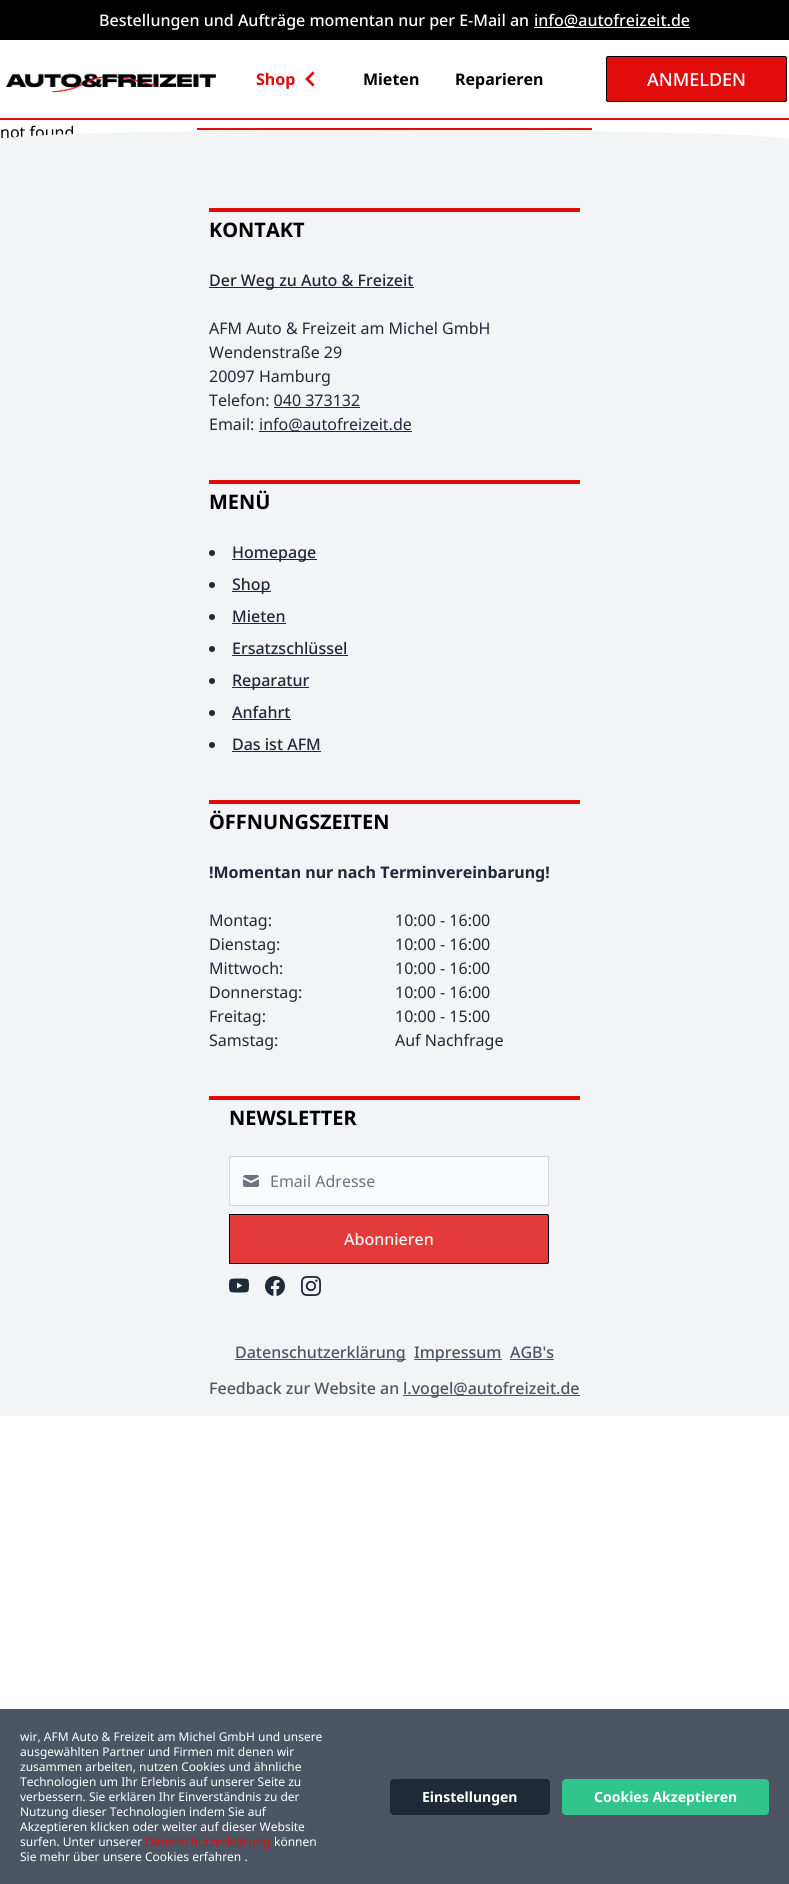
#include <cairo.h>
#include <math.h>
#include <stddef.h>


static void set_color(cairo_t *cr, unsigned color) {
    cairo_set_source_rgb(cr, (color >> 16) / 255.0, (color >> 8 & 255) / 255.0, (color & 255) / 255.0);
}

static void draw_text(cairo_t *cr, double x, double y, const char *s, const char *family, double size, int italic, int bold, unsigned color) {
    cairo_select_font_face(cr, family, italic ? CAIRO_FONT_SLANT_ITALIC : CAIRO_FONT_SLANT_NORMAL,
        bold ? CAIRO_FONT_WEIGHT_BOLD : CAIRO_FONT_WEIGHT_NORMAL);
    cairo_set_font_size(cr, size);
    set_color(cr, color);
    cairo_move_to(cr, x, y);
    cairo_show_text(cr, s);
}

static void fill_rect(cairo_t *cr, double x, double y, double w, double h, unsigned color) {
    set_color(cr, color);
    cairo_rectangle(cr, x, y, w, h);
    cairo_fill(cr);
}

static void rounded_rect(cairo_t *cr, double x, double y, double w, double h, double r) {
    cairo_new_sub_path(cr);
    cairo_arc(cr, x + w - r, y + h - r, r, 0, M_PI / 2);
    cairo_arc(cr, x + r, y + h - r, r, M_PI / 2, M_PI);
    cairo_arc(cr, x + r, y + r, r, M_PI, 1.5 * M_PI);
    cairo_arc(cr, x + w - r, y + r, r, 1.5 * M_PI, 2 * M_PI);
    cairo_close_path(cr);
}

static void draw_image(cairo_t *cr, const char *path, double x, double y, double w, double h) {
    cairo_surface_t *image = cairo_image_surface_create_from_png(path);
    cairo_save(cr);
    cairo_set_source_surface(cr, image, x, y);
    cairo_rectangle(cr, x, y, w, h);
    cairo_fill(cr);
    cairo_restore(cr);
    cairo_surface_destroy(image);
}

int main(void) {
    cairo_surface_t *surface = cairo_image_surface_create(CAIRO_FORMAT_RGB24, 789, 1884);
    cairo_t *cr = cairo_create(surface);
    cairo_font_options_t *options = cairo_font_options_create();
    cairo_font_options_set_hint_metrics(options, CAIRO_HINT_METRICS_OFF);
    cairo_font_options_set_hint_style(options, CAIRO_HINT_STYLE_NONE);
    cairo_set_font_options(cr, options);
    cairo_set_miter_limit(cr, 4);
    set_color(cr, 0xFFFFFF);
    cairo_paint(cr);
    fill_rect(cr, 0, 0, 789, 40, 0x000000);
    draw_text(cr, 99, 26, "Bestellungen und Aufträge momentan nur per E-Mail an", "Noto Sans Medium", 16, 0, 0, 0xFFFFFF);
    fill_rect(cr, 534, 27, 156, 1, 0xFFFFFF);
    draw_text(cr, 534, 26, "info@autofreizeit.de", "Noto Sans Medium", 16, 0, 0, 0xFFFFFF);
    fill_rect(cr, 0, 118, 789, 2, 0xE00B0B);
    draw_image(cr, "assets/img1.png", 6, 73, 210, 20);
    draw_text(cr, 256, 85, "Shop", "Noto Sans", 16, 0, 1, 0xE00B0B);
    draw_image(cr, "assets/img2.png", 305, 71, 10, 16);
    draw_text(cr, 363, 85, "Mieten", "Noto Sans", 16, 0, 1, 0x000000);
    draw_text(cr, 455, 85, "Reparieren", "Noto Sans", 16, 0, 1, 0x000000);
    set_color(cr, 0xE00B0B);
    rounded_rect(cr, 606.5, 56.5, 180, 45, 1.5);
    cairo_fill_preserve(cr);
    set_color(cr, 0x000000);
    cairo_set_line_width(cr, 1);
    cairo_stroke(cr);
    draw_text(cr, 647, 86, "ANMELDEN", "Noto Sans Medium", 18, 0, 0, 0xFFFFFF);
    draw_text(cr, 0, 138, "not found", "Noto Sans", 16, 0, 0, 0x000000);
    fill_rect(cr, 0, 152, 789, 1264, 0xF3F4F6);
    cairo_new_path(cr);
    cairo_move_to(cr, 394, 130);
    cairo_curve_to(cr, 612, 130, 789, 134, 789, 140);
    cairo_line_to(cr, 789, 152);
    cairo_line_to(cr, 0, 152);
    cairo_line_to(cr, 0, 140);
    cairo_curve_to(cr, 0, 134, 177, 130, 394, 130);
    cairo_close_path(cr);
    cairo_fill(cr);
    fill_rect(cr, 197, 128, 395, 2, 0xE00B0B);
    fill_rect(cr, 209, 208, 371, 4, 0xE00B0B);
    draw_text(cr, 209, 237, "KONTAKT", "Noto Sans", 20, 0, 1, 0x000000);
    fill_rect(cr, 209, 287, 205, 1, 0x1F2937);
    draw_text(cr, 209, 286, "Der Weg zu Auto & Freizeit", "Noto Sans Medium", 16, 0, 0, 0x1F2937);
    draw_text(cr, 209, 334, "AFM Auto & Freizeit am Michel GmbH", "Noto Sans", 16, 0, 0, 0x1F2937);
    draw_text(cr, 209, 358, "Wendenstraße 29", "Noto Sans", 16, 0, 0, 0x1F2937);
    draw_text(cr, 209, 382, "20097 Hamburg", "Noto Sans", 16, 0, 0, 0x1F2937);
    draw_text(cr, 209, 406, "Telefon: 040 373132", "Noto Sans", 16, 0, 0, 0x1F2937);
    fill_rect(cr, 274, 407, 86, 1, 0x1F2937);
    draw_text(cr, 209, 430, "Email:", "Noto Sans", 16, 0, 0, 0x1F2937);
    fill_rect(cr, 259, 431, 153, 1, 0x1F2937);
    draw_text(cr, 259, 430, "info@autofreizeit.de", "Noto Sans", 16, 0, 0, 0x1F2937);
    fill_rect(cr, 209, 480, 371, 4, 0xE00B0B);
    draw_text(cr, 209, 509, "MENÜ", "Noto Sans", 20, 0, 1, 0x000000);
    set_color(cr, 0x1F2937);
    cairo_new_path(cr);
    cairo_arc(cr, 212, 553, 3, 0, 2 * M_PI);
    cairo_fill(cr);
    fill_rect(cr, 232, 559, 85, 1, 0x1F2937);
    draw_text(cr, 232, 558, "Homepage", "Noto Sans Medium", 16, 0, 0, 0x1F2937);
    cairo_new_path(cr);
    cairo_arc(cr, 212, 585, 3, 0, 2 * M_PI);
    cairo_fill(cr);
    fill_rect(cr, 232, 591, 39, 1, 0x1F2937);
    draw_text(cr, 232, 590, "Shop", "Noto Sans Medium", 16, 0, 0, 0x1F2937);
    cairo_new_path(cr);
    cairo_arc(cr, 212, 617, 3, 0, 2 * M_PI);
    cairo_fill(cr);
    draw_text(cr, 232, 622, "Mieten", "Noto Sans Medium", 16, 0, 0, 0x1F2937);
    fill_rect(cr, 232, 623, 54, 1, 0x1F2937);
    cairo_new_path(cr);
    cairo_arc(cr, 212, 649, 3, 0, 2 * M_PI);
    cairo_fill(cr);
    draw_text(cr, 232, 654, "Ersatzschlüssel", "Noto Sans Medium", 16, 0, 0, 0x1F2937);
    fill_rect(cr, 232, 655, 116, 1, 0x1F2937);
    cairo_new_path(cr);
    cairo_arc(cr, 212, 681, 3, 0, 2 * M_PI);
    cairo_fill(cr);
    fill_rect(cr, 232, 687, 77, 1, 0x1F2937);
    draw_text(cr, 232, 686, "Reparatur", "Noto Sans Medium", 16, 0, 0, 0x1F2937);
    cairo_new_path(cr);
    cairo_arc(cr, 212, 713, 3, 0, 2 * M_PI);
    cairo_fill(cr);
    draw_text(cr, 232, 718, "Anfahrt", "Noto Sans Medium", 16, 0, 0, 0x1F2937);
    fill_rect(cr, 232, 719, 59, 1, 0x1F2937);
    cairo_new_path(cr);
    cairo_arc(cr, 212, 745, 3, 0, 2 * M_PI);
    cairo_fill(cr);
    draw_text(cr, 232, 750, "Das ist AFM", "Noto Sans Medium", 16, 0, 0, 0x1F2937);
    fill_rect(cr, 232, 751, 89, 1, 0x1F2937);
    fill_rect(cr, 209, 800, 371, 4, 0xE00B0B);
    draw_text(cr, 209, 829, "ÖFFNUNGSZEITEN", "Noto Sans", 20, 0, 1, 0x000000);
    draw_text(cr, 209, 878, "!Momentan nur nach Terminvereinbarung!", "Noto Sans", 16, 0, 1, 0x1F2937);
    draw_text(cr, 209, 926, "Montag:", "Noto Sans", 16, 0, 0, 0x1F2937);
    draw_text(cr, 209, 950, "Dienstag:", "Noto Sans", 16, 0, 0, 0x1F2937);
    draw_text(cr, 209, 974, "Mittwoch:", "Noto Sans", 16, 0, 0, 0x1F2937);
    draw_text(cr, 209, 998, "Donnerstag:", "Noto Sans", 16, 0, 0, 0x1F2937);
    draw_text(cr, 209, 1022, "Freitag:", "Noto Sans", 16, 0, 0, 0x1F2937);
    draw_text(cr, 209, 1046, "Samstag:", "Noto Sans", 16, 0, 0, 0x1F2937);
    draw_text(cr, 395, 926, "10:00 - 16:00", "Noto Sans", 16, 0, 0, 0x1F2937);
    draw_text(cr, 395, 950, "10:00 - 16:00", "Noto Sans", 16, 0, 0, 0x1F2937);
    draw_text(cr, 395, 974, "10:00 - 16:00", "Noto Sans", 16, 0, 0, 0x1F2937);
    draw_text(cr, 395, 998, "10:00 - 16:00", "Noto Sans", 16, 0, 0, 0x1F2937);
    draw_text(cr, 395, 1022, "10:00 - 15:00", "Noto Sans", 16, 0, 0, 0x1F2937);
    draw_text(cr, 395, 1046, "Auf Nachfrage", "Noto Sans", 16, 0, 0, 0x1F2937);
    fill_rect(cr, 209, 1096, 371, 4, 0xE00B0B);
    draw_text(cr, 229, 1125, "NEWSLETTER", "Noto Sans", 20, 0, 1, 0x000000);
    set_color(cr, 0xF9FAFB);
    cairo_new_path(cr);
    cairo_move_to(cr, 231, 1156.5);
    cairo_line_to(cr, 548.5, 1156.5);
    cairo_line_to(cr, 548.5, 1205.5);
    cairo_line_to(cr, 231, 1205.5);
    cairo_curve_to(cr, 230, 1205.5, 229.5, 1205, 229.5, 1204);
    cairo_line_to(cr, 229.5, 1158);
    cairo_curve_to(cr, 229.5, 1157, 230, 1156.5, 231, 1156.5);
    cairo_close_path(cr);
    cairo_fill_preserve(cr);
    set_color(cr, 0xD1D5DB);
    cairo_stroke(cr);
    draw_image(cr, "assets/img3.png", 243, 1175, 16, 12);
    draw_text(cr, 270, 1187, "Email Adresse", "Noto Sans", 16, 0, 0, 0x6B7280);
    set_color(cr, 0xE43A3A);
    cairo_new_path(cr);
    cairo_move_to(cr, 229.5, 1214.5);
    cairo_line_to(cr, 547, 1214.5);
    cairo_curve_to(cr, 548, 1214.5, 548.5, 1215, 548.5, 1216);
    cairo_line_to(cr, 548.5, 1262);
    cairo_curve_to(cr, 548.5, 1263, 548, 1263.5, 547, 1263.5);
    cairo_line_to(cr, 229.5, 1263.5);
    cairo_close_path(cr);
    cairo_fill_preserve(cr);
    set_color(cr, 0x000000);
    cairo_stroke(cr);
    draw_text(cr, 344, 1245, "Abonnieren", "Noto Sans Medium", 16, 0, 0, 0xF3F4F6);
    draw_image(cr, "assets/img4.png", 229, 1278, 20, 15);
    draw_image(cr, "assets/img5.png", 265, 1276, 20, 20);
    draw_image(cr, "assets/img6.png", 301, 1276, 20, 20);
    fill_rect(cr, 235, 1359, 171, 1, 0x4B5563);
    draw_text(cr, 235, 1358, "Datenschutzerklärung", "Noto Sans Medium", 16, 0, 0, 0x4B5563);
    fill_rect(cr, 414, 1359, 88, 1, 0x4B5563);
    draw_text(cr, 414, 1358, "Impressum", "Noto Sans Medium", 16, 0, 0, 0x4B5563);
    draw_text(cr, 510, 1358, "AGB's", "Noto Sans Medium", 16, 0, 0, 0x4B5563);
    fill_rect(cr, 510, 1359, 44, 1, 0x4B5563);
    draw_text(cr, 209, 1394, "Feedback zur Website an", "Noto Sans Medium", 16, 0, 0, 0x4B5563);
    fill_rect(cr, 403, 1395, 177, 1, 0x4B5563);
    draw_text(cr, 403, 1394, "l.vogel@autofreizeit.de", "Noto Sans Medium", 16, 0, 0, 0x4B5563);
    fill_rect(cr, 0, 1709, 789, 175, 0x4B5563);
    draw_text(cr, 20, 1741, "wir, AFM Auto & Freizeit am Michel GmbH und unsere", "Noto Sans", 12, 0, 0, 0xFFFFFF);
    draw_text(cr, 20, 1756, "ausgewählten Partner und Firmen mit denen wir", "Noto Sans", 12, 0, 0, 0xFFFFFF);
    draw_text(cr, 20, 1771, "zusammen arbeiten, nutzen Cookies und ähnliche", "Noto Sans", 12, 0, 0, 0xFFFFFF);
    draw_text(cr, 20, 1786, "Technologien um Ihr Erlebnis auf unserer Seite zu", "Noto Sans", 12, 0, 0, 0xFFFFFF);
    draw_text(cr, 20, 1801, "verbessern. Sie erklären Ihr Einverständnis zu der", "Noto Sans", 12, 0, 0, 0xFFFFFF);
    draw_text(cr, 20, 1816, "Nutzung dieser Technologien indem Sie auf", "Noto Sans", 12, 0, 0, 0xFFFFFF);
    draw_text(cr, 20, 1831, "Akzeptieren klicken oder weiter auf dieser Website", "Noto Sans", 12, 0, 0, 0xFFFFFF);
    draw_text(cr, 20, 1846, "surfen. Unter unserer", "Noto Sans", 12, 0, 0, 0xFFFFFF);
    draw_text(cr, 145, 1846, "Datenschutzerklärung", "Noto Sans", 12, 0, 0, 0xE00B0B);
    draw_text(cr, 274, 1846, "können", "Noto Sans", 12, 0, 0, 0xFFFFFF);
    draw_text(cr, 20, 1861, "Sie mehr über unsere Cookies erfahren .", "Noto Sans", 12, 0, 0, 0xFFFFFF);
    set_color(cr, 0x1F2937);
    rounded_rect(cr, 390, 1779, 160, 36, 4);
    cairo_fill(cr);
    draw_text(cr, 422, 1802, "Einstellungen", "Noto Sans", 14, 0, 1, 0xFFFFFF);
    set_color(cr, 0x31C48D);
    rounded_rect(cr, 562, 1779, 207, 36, 4);
    cairo_fill(cr);
    draw_text(cr, 594, 1802, "Cookies Akzeptieren", "Noto Sans", 14, 0, 1, 0xFFFFFF);
    cairo_surface_write_to_png(surface, "output.png");
    cairo_font_options_destroy(options);
    cairo_destroy(cr);
    cairo_surface_destroy(surface);
    return 0;
}
